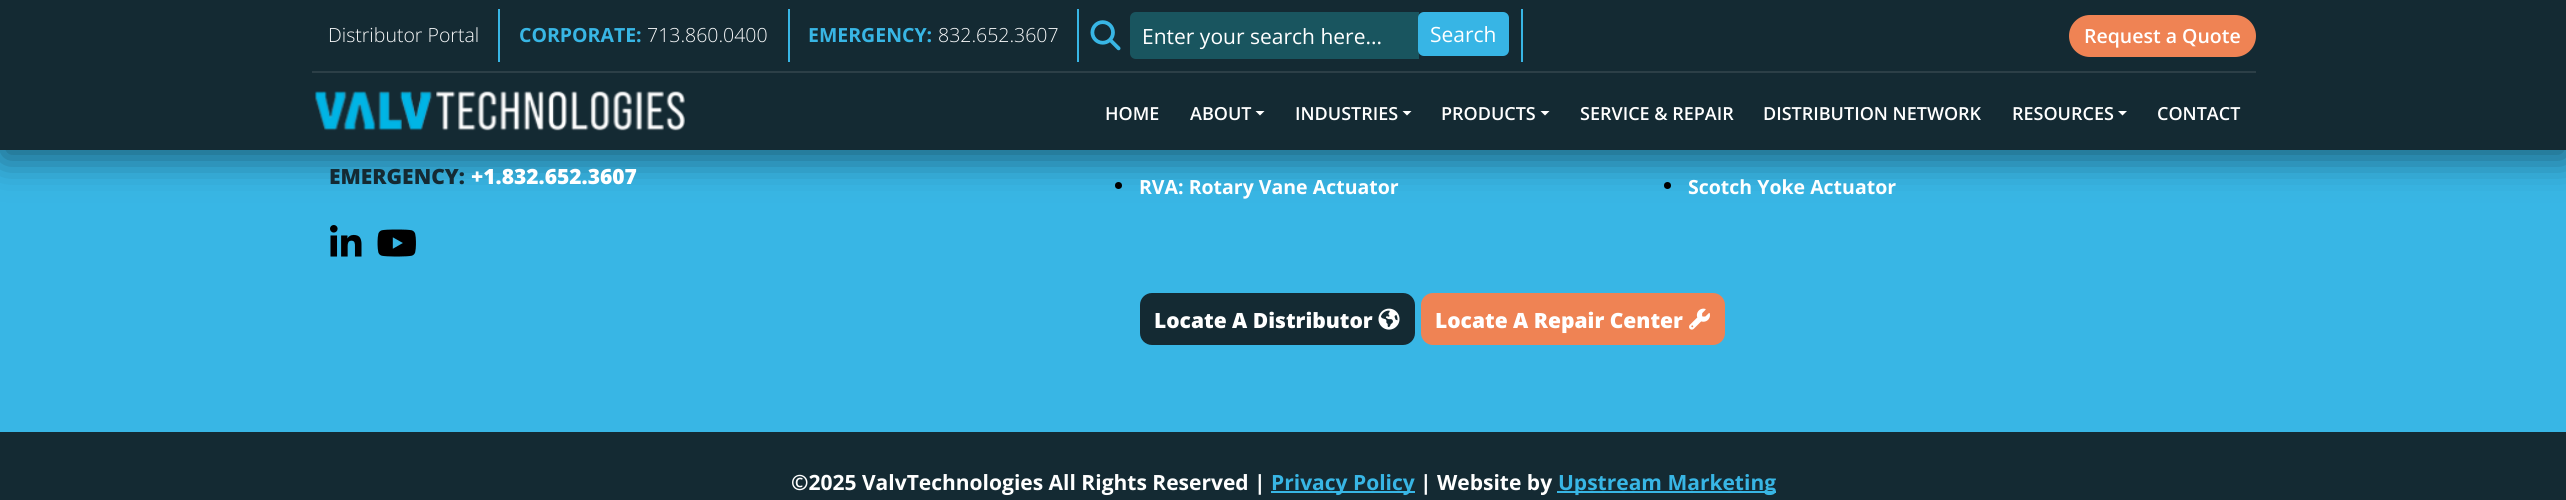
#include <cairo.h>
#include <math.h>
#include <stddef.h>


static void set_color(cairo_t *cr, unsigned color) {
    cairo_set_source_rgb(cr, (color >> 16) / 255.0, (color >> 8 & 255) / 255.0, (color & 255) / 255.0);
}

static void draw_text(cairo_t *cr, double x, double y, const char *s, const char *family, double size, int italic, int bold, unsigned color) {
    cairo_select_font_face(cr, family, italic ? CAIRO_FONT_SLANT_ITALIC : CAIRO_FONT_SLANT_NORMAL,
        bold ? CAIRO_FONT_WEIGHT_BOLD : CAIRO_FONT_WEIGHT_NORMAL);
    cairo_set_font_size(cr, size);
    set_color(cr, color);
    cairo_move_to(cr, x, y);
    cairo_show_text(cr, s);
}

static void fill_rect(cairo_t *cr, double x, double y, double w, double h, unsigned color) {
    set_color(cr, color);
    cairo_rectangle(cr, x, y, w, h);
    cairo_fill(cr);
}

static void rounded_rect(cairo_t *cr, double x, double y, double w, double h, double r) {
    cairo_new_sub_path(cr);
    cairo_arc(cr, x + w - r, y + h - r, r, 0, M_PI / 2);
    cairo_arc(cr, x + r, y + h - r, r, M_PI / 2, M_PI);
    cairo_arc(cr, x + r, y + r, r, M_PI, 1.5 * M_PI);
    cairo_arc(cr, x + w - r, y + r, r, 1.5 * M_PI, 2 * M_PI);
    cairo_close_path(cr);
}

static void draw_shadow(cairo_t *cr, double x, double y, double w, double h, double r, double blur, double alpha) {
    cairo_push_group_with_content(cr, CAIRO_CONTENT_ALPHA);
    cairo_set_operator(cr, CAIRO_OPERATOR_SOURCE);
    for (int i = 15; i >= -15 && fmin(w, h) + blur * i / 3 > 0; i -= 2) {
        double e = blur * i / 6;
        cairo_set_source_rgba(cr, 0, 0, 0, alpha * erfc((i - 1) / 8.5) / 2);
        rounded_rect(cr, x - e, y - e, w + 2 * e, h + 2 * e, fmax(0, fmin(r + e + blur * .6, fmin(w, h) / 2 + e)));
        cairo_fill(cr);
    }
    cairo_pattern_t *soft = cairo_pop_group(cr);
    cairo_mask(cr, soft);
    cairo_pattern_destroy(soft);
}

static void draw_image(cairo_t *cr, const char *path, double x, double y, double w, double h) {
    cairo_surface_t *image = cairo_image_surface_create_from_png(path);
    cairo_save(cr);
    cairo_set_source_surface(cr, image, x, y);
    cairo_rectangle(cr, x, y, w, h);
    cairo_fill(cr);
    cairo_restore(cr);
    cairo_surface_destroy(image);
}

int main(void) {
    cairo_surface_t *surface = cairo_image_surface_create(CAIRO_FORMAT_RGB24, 2566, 500);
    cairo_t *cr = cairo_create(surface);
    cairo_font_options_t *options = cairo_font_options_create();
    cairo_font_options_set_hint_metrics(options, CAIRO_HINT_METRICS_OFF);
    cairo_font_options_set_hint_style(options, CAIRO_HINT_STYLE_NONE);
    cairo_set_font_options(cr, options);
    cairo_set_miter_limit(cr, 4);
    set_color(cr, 0x38B6E5);
    cairo_paint(cr);
    set_color(cr, 0x000000);
    cairo_arc(cr, 1118.5, 185.5, 3.5, 0, 2 * M_PI);
    cairo_fill(cr);
    cairo_arc(cr, 1667.5, 185.5, 3.5, 0, 2 * M_PI);
    cairo_fill(cr);
    set_color(cr, 0x000000);
    draw_shadow(cr, 2, 8, 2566, 150, 0, 18, 0.5);
    fill_rect(cr, 0, 0, 2566, 150, 0x142A33);
    fill_rect(cr, 312, 71, 1944, 2, 0x2C3F47);
    fill_rect(cr, 498, 9, 2, 53, 0x38B6E5);
    draw_text(cr, 328, 42, "Distributor Portal", "Open Sans Light", 19.5, 0, 0, 0xF8F9FA);
    fill_rect(cr, 788, 9, 2, 53, 0x38B6E5);
    draw_text(cr, 519, 42, "CORPORATE:", "Open Sans", 19.5, 0, 1, 0x38B6E5);
    draw_text(cr, 647, 42, "713.860.0400", "Open Sans Light", 19.5, 0, 0, 0xF8F9FA);
    fill_rect(cr, 1077, 9, 2, 53, 0x38B6E5);
    draw_text(cr, 808, 42, "EMERGENCY:", "Open Sans", 19.5, 0, 1, 0x38B6E5);
    draw_text(cr, 938, 42, "832.652.3607", "Open Sans Light", 19.5, 0, 0, 0xF8F9FA);
    fill_rect(cr, 1521, 9, 2, 53, 0x38B6E5);
    draw_image(cr, "assets/img1.png", 1090, 20, 31, 31);
    set_color(cr, 0x19555F);
    cairo_new_path(cr);
    cairo_move_to(cr, 1136, 12);
    cairo_line_to(cr, 1419, 12);
    cairo_line_to(cr, 1419, 59);
    cairo_line_to(cr, 1136, 59);
    cairo_curve_to(cr, 1132.5, 59, 1130, 56.5, 1130, 53);
    cairo_line_to(cr, 1130, 18);
    cairo_curve_to(cr, 1130, 14.5, 1132.5, 12, 1136, 12);
    cairo_close_path(cr);
    cairo_fill(cr);
    draw_text(cr, 1142, 44, "Enter your search here...", "Open Sans", 21, 0, 0, 0xFFFFFF);
    set_color(cr, 0x37B5E5);
    rounded_rect(cr, 1418, 12, 91, 44, 6);
    cairo_fill(cr);
    draw_text(cr, 1430, 42, "Search", "Open Sans", 21, 0, 0, 0xFFFFFF);
    set_color(cr, 0xEF8354);
    rounded_rect(cr, 2069, 15, 187, 42, 21);
    cairo_fill(cr);
    draw_text(cr, 2084, 43, "Request a Quote", "Open Sans SemiBold", 19.5, 0, 0, 0xFFFFFF);
    draw_image(cr, "assets/img2.png", 314, 91, 371, 40);
    draw_text(cr, 1105, 120, "HOME", "Open Sans SemiBold", 18, 0, 0, 0xFFFFFF);
    draw_text(cr, 1190, 120, "ABOUT", "Open Sans SemiBold", 18, 0, 0, 0xFFFFFF);
    cairo_new_path(cr);
    cairo_move_to(cr, 1255.5, 111);
    cairo_line_to(cr, 1264.5, 111);
    cairo_line_to(cr, 1260, 115.5);
    cairo_close_path(cr);
    cairo_fill(cr);
    draw_text(cr, 1295, 120, "INDUSTRIES", "Open Sans SemiBold", 18, 0, 0, 0xFFFFFF);
    cairo_new_path(cr);
    cairo_move_to(cr, 1402.5, 111);
    cairo_line_to(cr, 1411.5, 111);
    cairo_line_to(cr, 1407, 115.5);
    cairo_close_path(cr);
    cairo_fill(cr);
    draw_text(cr, 1441, 120, "PRODUCTS", "Open Sans SemiBold", 18, 0, 0, 0xFFFFFF);
    cairo_new_path(cr);
    cairo_move_to(cr, 1540.5, 111);
    cairo_line_to(cr, 1549.5, 111);
    cairo_line_to(cr, 1545, 115.5);
    cairo_close_path(cr);
    cairo_fill(cr);
    draw_text(cr, 1580, 120, "SERVICE & REPAIR", "Open Sans SemiBold", 18, 0, 0, 0xFFFFFF);
    draw_text(cr, 1763, 120, "DISTRIBUTION NETWORK", "Open Sans SemiBold", 18, 0, 0, 0xFFFFFF);
    draw_text(cr, 2012, 120, "RESOURCES", "Open Sans SemiBold", 18, 0, 0, 0xFFFFFF);
    cairo_new_path(cr);
    cairo_move_to(cr, 2118, 111);
    cairo_line_to(cr, 2127, 111);
    cairo_line_to(cr, 2122.5, 115.5);
    cairo_close_path(cr);
    cairo_fill(cr);
    draw_text(cr, 2157, 120, "CONTACT", "Open Sans SemiBold", 18, 0, 0, 0xFFFFFF);
    draw_text(cr, 329, 184, "EMERGENCY:", "Open Sans ExtraBold", 21, 0, 0, 0x142A33);
    draw_text(cr, 471, 184, "+1.832.652.3607", "Open Sans ExtraBold", 21, 0, 0, 0xFFFFFF);
    draw_image(cr, "assets/img3.png", 330, 225, 32, 32);
    draw_image(cr, "assets/img4.png", 377, 229, 39, 28);
    draw_text(cr, 1139, 194, "RVA: Rotary Vane Actuator", "Open Sans", 19.5, 0, 1, 0xFFFFFF);
    draw_text(cr, 1688, 194, "Scotch Yoke Actuator", "Open Sans", 19.5, 0, 1, 0xFFFFFF);
    set_color(cr, 0x142A33);
    rounded_rect(cr, 1140, 293, 275, 52, 12);
    cairo_fill(cr);
    draw_text(cr, 1154, 328, "Locate A Distributor", "Open Sans ExtraBold", 21, 0, 0, 0xFFFFFF);
    draw_image(cr, "assets/img5.png", 1378, 308, 22, 22);
    set_color(cr, 0xEF8354);
    rounded_rect(cr, 1421, 293, 304, 52, 12);
    cairo_fill(cr);
    draw_text(cr, 1435, 328, "Locate A Repair Center", "Open Sans ExtraBold", 21, 0, 0, 0xFFFFFF);
    draw_image(cr, "assets/img6.png", 1689, 308, 21, 22);
    fill_rect(cr, 0, 432, 2566, 68, 0x142A33);
    draw_text(cr, 791, 490, "©2025 ValvTechnologies All Rights Reserved |", "Open Sans", 21, 0, 1, 0xFFFFFF);
    fill_rect(cr, 1271, 491, 144, 2, 0x38B6E5);
    draw_text(cr, 1271, 490, "Privacy Policy", "Open Sans", 21, 0, 1, 0x38B6E5);
    draw_text(cr, 1420, 490, "| Website by", "Open Sans", 21, 0, 1, 0xFFFFFF);
    fill_rect(cr, 1557, 491, 219, 2, 0x38B6E5);
    draw_text(cr, 1558, 490, "Upstream Marketing", "Open Sans", 21, 0, 1, 0x38B6E5);
    cairo_surface_write_to_png(surface, "output.png");
    cairo_font_options_destroy(options);
    cairo_destroy(cr);
    cairo_surface_destroy(surface);
    return 0;
}
